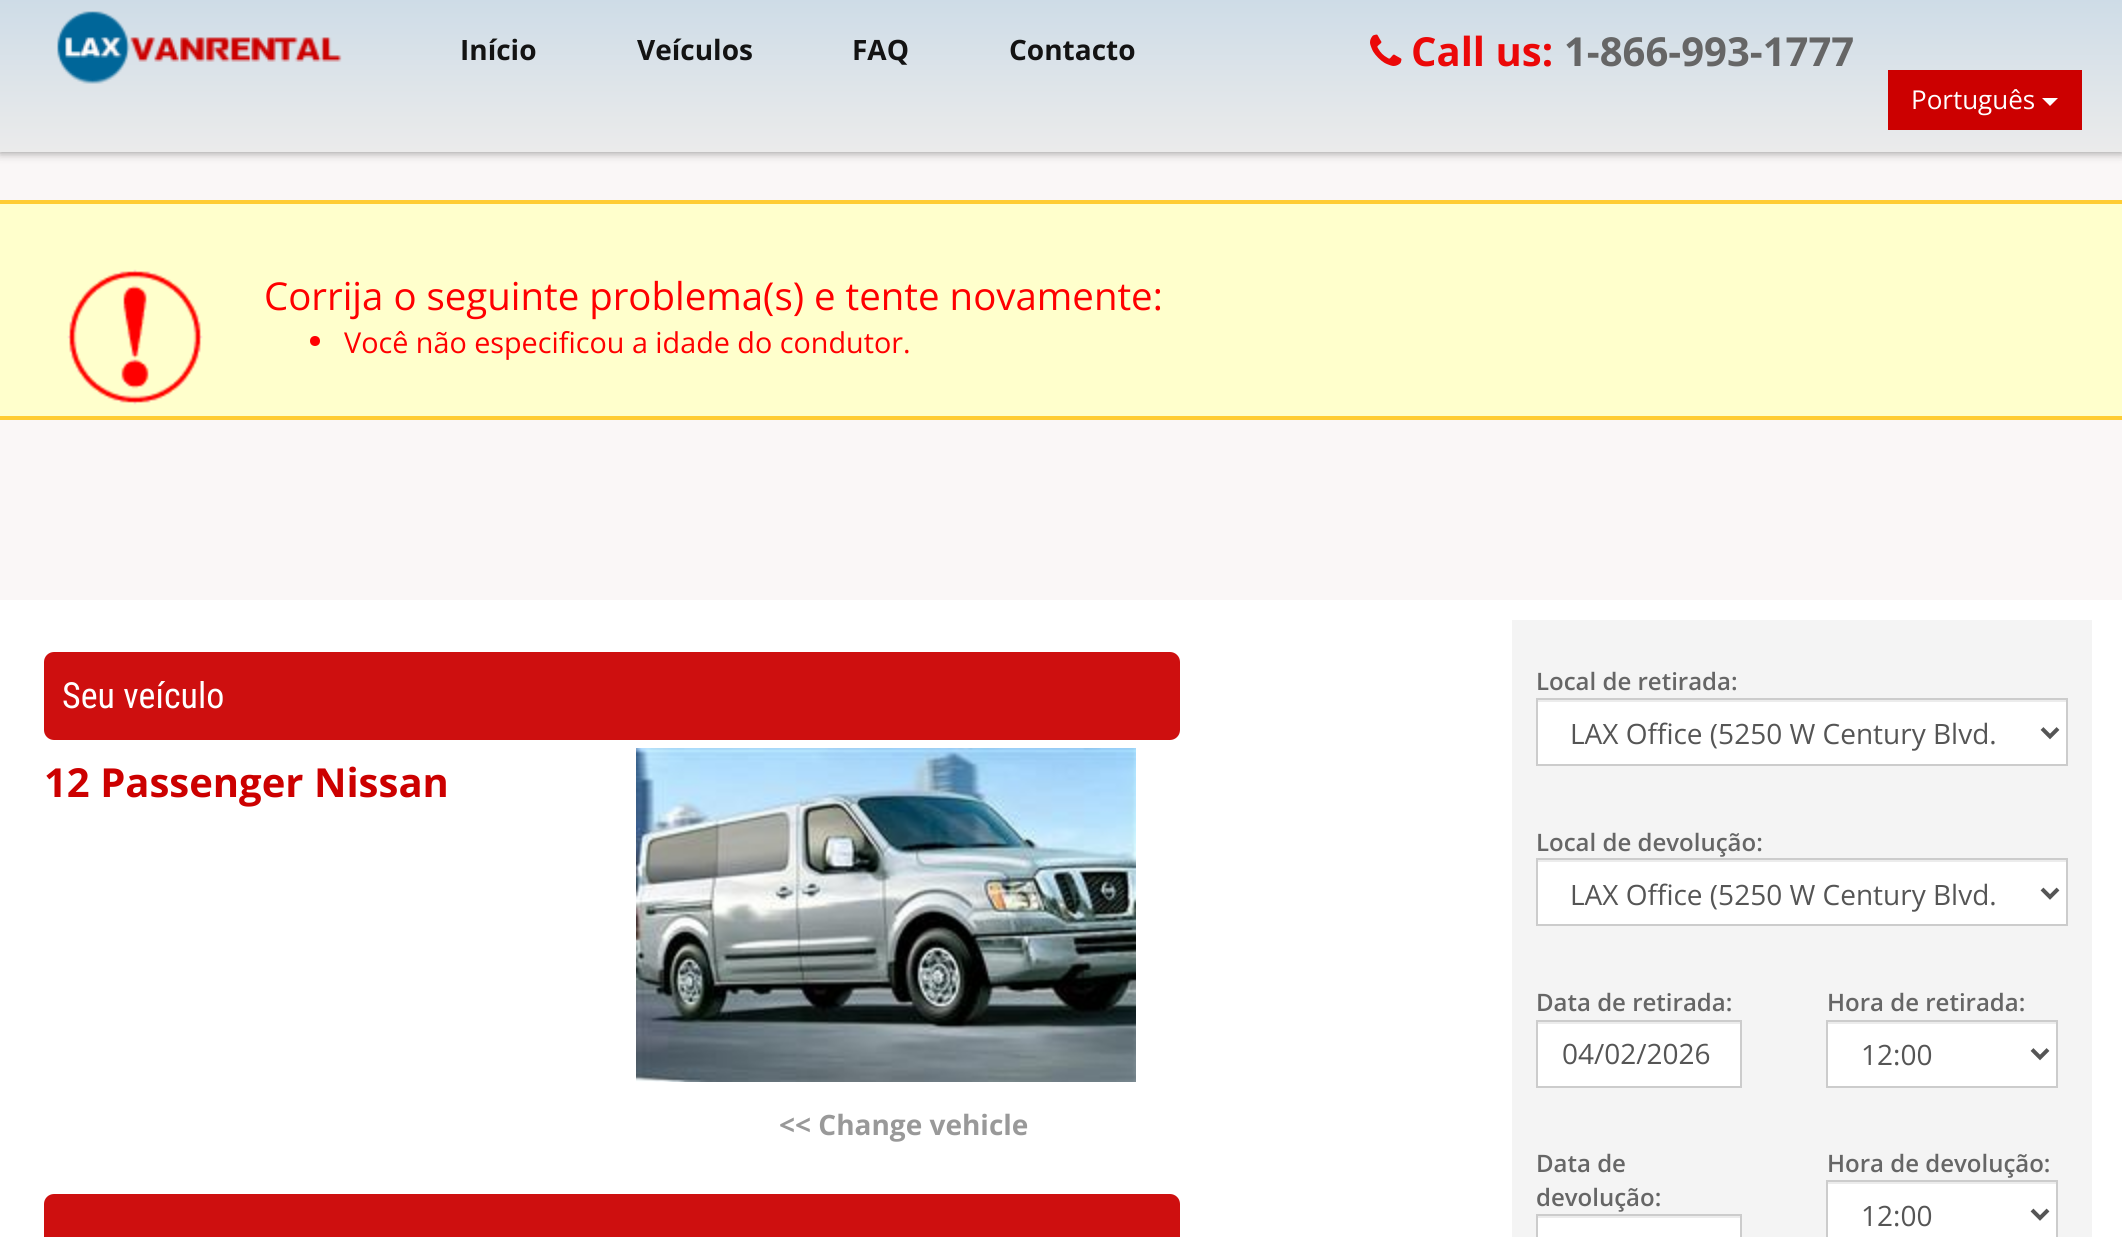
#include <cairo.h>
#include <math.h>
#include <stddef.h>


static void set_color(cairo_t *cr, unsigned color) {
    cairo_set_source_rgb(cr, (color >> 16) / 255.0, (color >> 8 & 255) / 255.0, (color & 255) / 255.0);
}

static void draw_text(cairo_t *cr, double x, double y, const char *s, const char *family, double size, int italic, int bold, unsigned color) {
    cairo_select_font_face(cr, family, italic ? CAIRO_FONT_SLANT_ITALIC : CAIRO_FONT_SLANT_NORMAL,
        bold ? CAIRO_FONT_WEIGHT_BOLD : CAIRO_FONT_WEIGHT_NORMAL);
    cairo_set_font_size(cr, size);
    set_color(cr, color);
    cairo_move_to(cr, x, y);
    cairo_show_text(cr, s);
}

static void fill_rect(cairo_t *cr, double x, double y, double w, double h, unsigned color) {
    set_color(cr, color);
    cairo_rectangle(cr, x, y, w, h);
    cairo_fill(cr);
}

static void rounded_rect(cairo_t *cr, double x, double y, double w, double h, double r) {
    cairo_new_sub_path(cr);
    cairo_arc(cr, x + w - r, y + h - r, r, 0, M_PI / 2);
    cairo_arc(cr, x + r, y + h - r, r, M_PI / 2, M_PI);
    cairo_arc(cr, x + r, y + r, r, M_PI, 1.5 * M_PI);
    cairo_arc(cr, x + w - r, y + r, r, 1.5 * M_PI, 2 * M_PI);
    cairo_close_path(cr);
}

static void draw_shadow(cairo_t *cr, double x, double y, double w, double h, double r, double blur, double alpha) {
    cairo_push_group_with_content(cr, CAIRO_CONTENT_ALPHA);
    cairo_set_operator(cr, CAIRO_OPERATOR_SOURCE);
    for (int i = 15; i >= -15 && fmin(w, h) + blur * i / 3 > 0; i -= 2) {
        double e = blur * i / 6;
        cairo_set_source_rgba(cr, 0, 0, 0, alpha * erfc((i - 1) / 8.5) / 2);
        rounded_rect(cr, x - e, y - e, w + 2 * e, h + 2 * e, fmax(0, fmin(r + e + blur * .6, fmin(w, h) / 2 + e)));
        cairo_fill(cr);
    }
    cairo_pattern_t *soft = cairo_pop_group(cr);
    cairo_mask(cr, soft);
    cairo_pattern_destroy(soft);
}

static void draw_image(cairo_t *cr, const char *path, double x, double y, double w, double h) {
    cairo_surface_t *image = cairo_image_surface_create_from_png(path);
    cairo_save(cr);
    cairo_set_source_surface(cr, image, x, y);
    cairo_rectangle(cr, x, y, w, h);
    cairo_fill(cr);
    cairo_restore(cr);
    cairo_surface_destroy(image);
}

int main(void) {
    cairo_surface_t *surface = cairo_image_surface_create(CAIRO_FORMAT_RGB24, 2122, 1237);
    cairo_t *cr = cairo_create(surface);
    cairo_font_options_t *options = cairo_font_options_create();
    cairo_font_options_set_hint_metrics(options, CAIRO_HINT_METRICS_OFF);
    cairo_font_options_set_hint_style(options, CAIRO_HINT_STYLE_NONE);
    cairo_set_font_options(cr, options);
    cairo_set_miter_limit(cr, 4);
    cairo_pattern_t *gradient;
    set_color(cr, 0xFAF7F7);
    cairo_paint(cr);
    set_color(cr, 0x888888);
    draw_shadow(cr, 0, 0, 2122, 152, 0, 5, 1);
    gradient = cairo_pattern_create_linear(1061, 0, 1061, 152);
    cairo_pattern_add_color_stop_rgba(gradient, 0, 0.808, 0.863, 0.906, 1);
    cairo_pattern_add_color_stop_rgba(gradient, 1, 0.922, 0.922, 0.922, 1);
    cairo_set_source(cr, gradient);
    cairo_pattern_destroy(gradient);
    cairo_rectangle(cr, 0, 0, 2122, 152);
    cairo_fill(cr);
    draw_image(cr, "assets/img1.png", 57, 11, 285, 73);
    draw_text(cr, 460, 60, "Início", "Open Sans", 28, 0, 1, 0x131313);
    draw_text(cr, 637, 60, "Veículos", "Open Sans", 28, 0, 1, 0x131313);
    draw_text(cr, 852, 60, "FAQ", "Open Sans", 28, 0, 1, 0x131313);
    draw_text(cr, 1009, 60, "Contacto", "Open Sans", 28, 0, 1, 0x131313);
    draw_image(cr, "assets/img2.png", 1370, 34, 32, 32);
    draw_text(cr, 1411, 66, "Call us:", "Open Sans", 40, 0, 1, 0xEB0808);
    draw_text(cr, 1564, 66, "1-866-993-1777", "Open Sans", 40, 0, 1, 0x666666);
    fill_rect(cr, 1888, 70, 194, 60, 0xCC0000);
    draw_text(cr, 1911, 109, "Português", "Open Sans", 26, 0, 0, 0xFFFFFF);
    cairo_new_path(cr);
    cairo_move_to(cr, 2042, 98);
    cairo_line_to(cr, 2058, 98);
    cairo_line_to(cr, 2050, 106);
    cairo_close_path(cr);
    cairo_fill(cr);
    fill_rect(cr, 0, 204, 2122, 212, 0xFFFFCC);
    draw_image(cr, "assets/img3.png", 67, 269, 136, 136);
    fill_rect(cr, 0, 200, 2122, 4, 0xFFCC33);
    fill_rect(cr, 0, 416, 2122, 4, 0xFFCC33);
    draw_text(cr, 264, 310, "Corrija o seguinte problema(s) e tente novamente:", "Open Sans", 38.4, 0, 0, 0xFF0000);
    cairo_new_path(cr);
    cairo_arc(cr, 315, 341, 5, 0, 2 * M_PI);
    cairo_fill(cr);
    draw_text(cr, 344, 353, "Você não especificou a idade do condutor.", "Open Sans", 28.75, 0, 0, 0xFF0000);
    fill_rect(cr, 0, 600, 2122, 637, 0xFFFFFF);
    set_color(cr, 0xCE0F0F);
    rounded_rect(cr, 44, 652, 1136, 88, 10);
    cairo_fill(cr);
    draw_text(cr, 62, 708, "Seu veículo", "Roboto Condensed", 36, 0, 0, 0xFFFFFF);
    draw_text(cr, 44, 797, "12 Passenger Nissan", "Open Sans", 40, 0, 1, 0xCC0000);
    draw_image(cr, "assets/img4.png", 636, 748, 500, 334);
    draw_text(cr, 779, 1135, "<< Change vehicle", "Open Sans", 28, 0, 1, 0x999999);
    set_color(cr, 0xCE0F0F);
    rounded_rect(cr, 44, 1194, 1136, 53, 10);
    cairo_fill(cr);
    fill_rect(cr, 1512, 620, 580, 617, 0xF4F4F4);
    draw_text(cr, 1536, 690, "Local de retirada:", "Open Sans SemiBold", 24, 0, 0, 0x666666);
    fill_rect(cr, 1538, 702, 528, 62, 0xFFFFFF);
    fill_rect(cr, 1538, 700, 528, 2, 0xECECEC);
    cairo_rectangle(cr, 1537, 699, 530, 66);
    set_color(cr, 0xCCCCCC);
    cairo_stroke(cr);
    cairo_new_path(cr);
    cairo_move_to(cr, 2042, 728.5);
    cairo_line_to(cr, 2050, 736.5);
    cairo_line_to(cr, 2058, 728.5);
    set_color(cr, 0x555555);
    cairo_set_line_width(cr, 4);
    cairo_stroke(cr);
    draw_text(cr, 1570, 744, "LAX Office (5250 W Century Blvd.", "Open Sans", 28, 0, 0, 0x555555);
    draw_text(cr, 1536, 851, "Local de devolução:", "Open Sans SemiBold", 24, 0, 0, 0x666666);
    fill_rect(cr, 1538, 862, 528, 62, 0xFFFFFF);
    fill_rect(cr, 1538, 860, 528, 2, 0xECECEC);
    cairo_rectangle(cr, 1537, 859, 530, 66);
    set_color(cr, 0xCCCCCC);
    cairo_set_line_width(cr, 2);
    cairo_stroke(cr);
    cairo_new_path(cr);
    cairo_move_to(cr, 2042, 889);
    cairo_line_to(cr, 2050, 897);
    cairo_line_to(cr, 2058, 889);
    set_color(cr, 0x555555);
    cairo_set_line_width(cr, 4);
    cairo_stroke(cr);
    draw_text(cr, 1570, 905, "LAX Office (5250 W Century Blvd.", "Open Sans", 28, 0, 0, 0x555555);
    draw_text(cr, 1536, 1011, "Data de retirada:", "Open Sans SemiBold", 24, 0, 0, 0x666666);
    fill_rect(cr, 1538, 1024, 202, 62, 0xFFFFFF);
    fill_rect(cr, 1538, 1022, 202, 2, 0xECECEC);
    cairo_rectangle(cr, 1537, 1021, 204, 66);
    set_color(cr, 0xCCCCCC);
    cairo_set_line_width(cr, 2);
    cairo_stroke(cr);
    draw_text(cr, 1562, 1064, "04/02/2026", "Open Sans", 28, 0, 0, 0x555555);
    draw_text(cr, 1827, 1011, "Hora de retirada:", "Open Sans SemiBold", 24, 0, 0, 0x666666);
    fill_rect(cr, 1828, 1024, 228, 62, 0xFFFFFF);
    fill_rect(cr, 1828, 1022, 228, 2, 0xECECEC);
    cairo_rectangle(cr, 1827, 1021, 230, 66);
    set_color(cr, 0xCCCCCC);
    cairo_stroke(cr);
    cairo_new_path(cr);
    cairo_move_to(cr, 2032, 1049.5);
    cairo_line_to(cr, 2040, 1057.5);
    cairo_line_to(cr, 2048, 1049.5);
    set_color(cr, 0x555555);
    cairo_set_line_width(cr, 4);
    cairo_stroke(cr);
    draw_text(cr, 1861, 1065, "12:00", "Open Sans", 28, 0, 0, 0x555555);
    draw_text(cr, 1536, 1172, "Data de", "Open Sans SemiBold", 24, 0, 0, 0x666666);
    draw_text(cr, 1536, 1206, "devolução:", "Open Sans SemiBold", 24, 0, 0, 0x666666);
    fill_rect(cr, 1538, 1218, 202, 19, 0xFFFFFF);
    fill_rect(cr, 1538, 1216, 202, 2, 0xECECEC);
    cairo_rectangle(cr, 1537, 1215, 204, 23);
    set_color(cr, 0xCCCCCC);
    cairo_set_line_width(cr, 2);
    cairo_stroke(cr);
    draw_text(cr, 1827, 1172, "Hora de devolução:", "Open Sans SemiBold", 24, 0, 0, 0x666666);
    fill_rect(cr, 1828, 1184, 228, 53, 0xFFFFFF);
    fill_rect(cr, 1828, 1182, 228, 2, 0xECECEC);
    cairo_rectangle(cr, 1827, 1181, 230, 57);
    set_color(cr, 0xCCCCCC);
    cairo_stroke(cr);
    cairo_new_path(cr);
    cairo_move_to(cr, 2032, 1210);
    cairo_line_to(cr, 2040, 1218);
    cairo_line_to(cr, 2048, 1210);
    set_color(cr, 0x555555);
    cairo_set_line_width(cr, 4);
    cairo_stroke(cr);
    draw_text(cr, 1861, 1226, "12:00", "Open Sans", 28, 0, 0, 0x555555);
    cairo_surface_write_to_png(surface, "output.png");
    cairo_font_options_destroy(options);
    cairo_destroy(cr);
    cairo_surface_destroy(surface);
    return 0;
}
